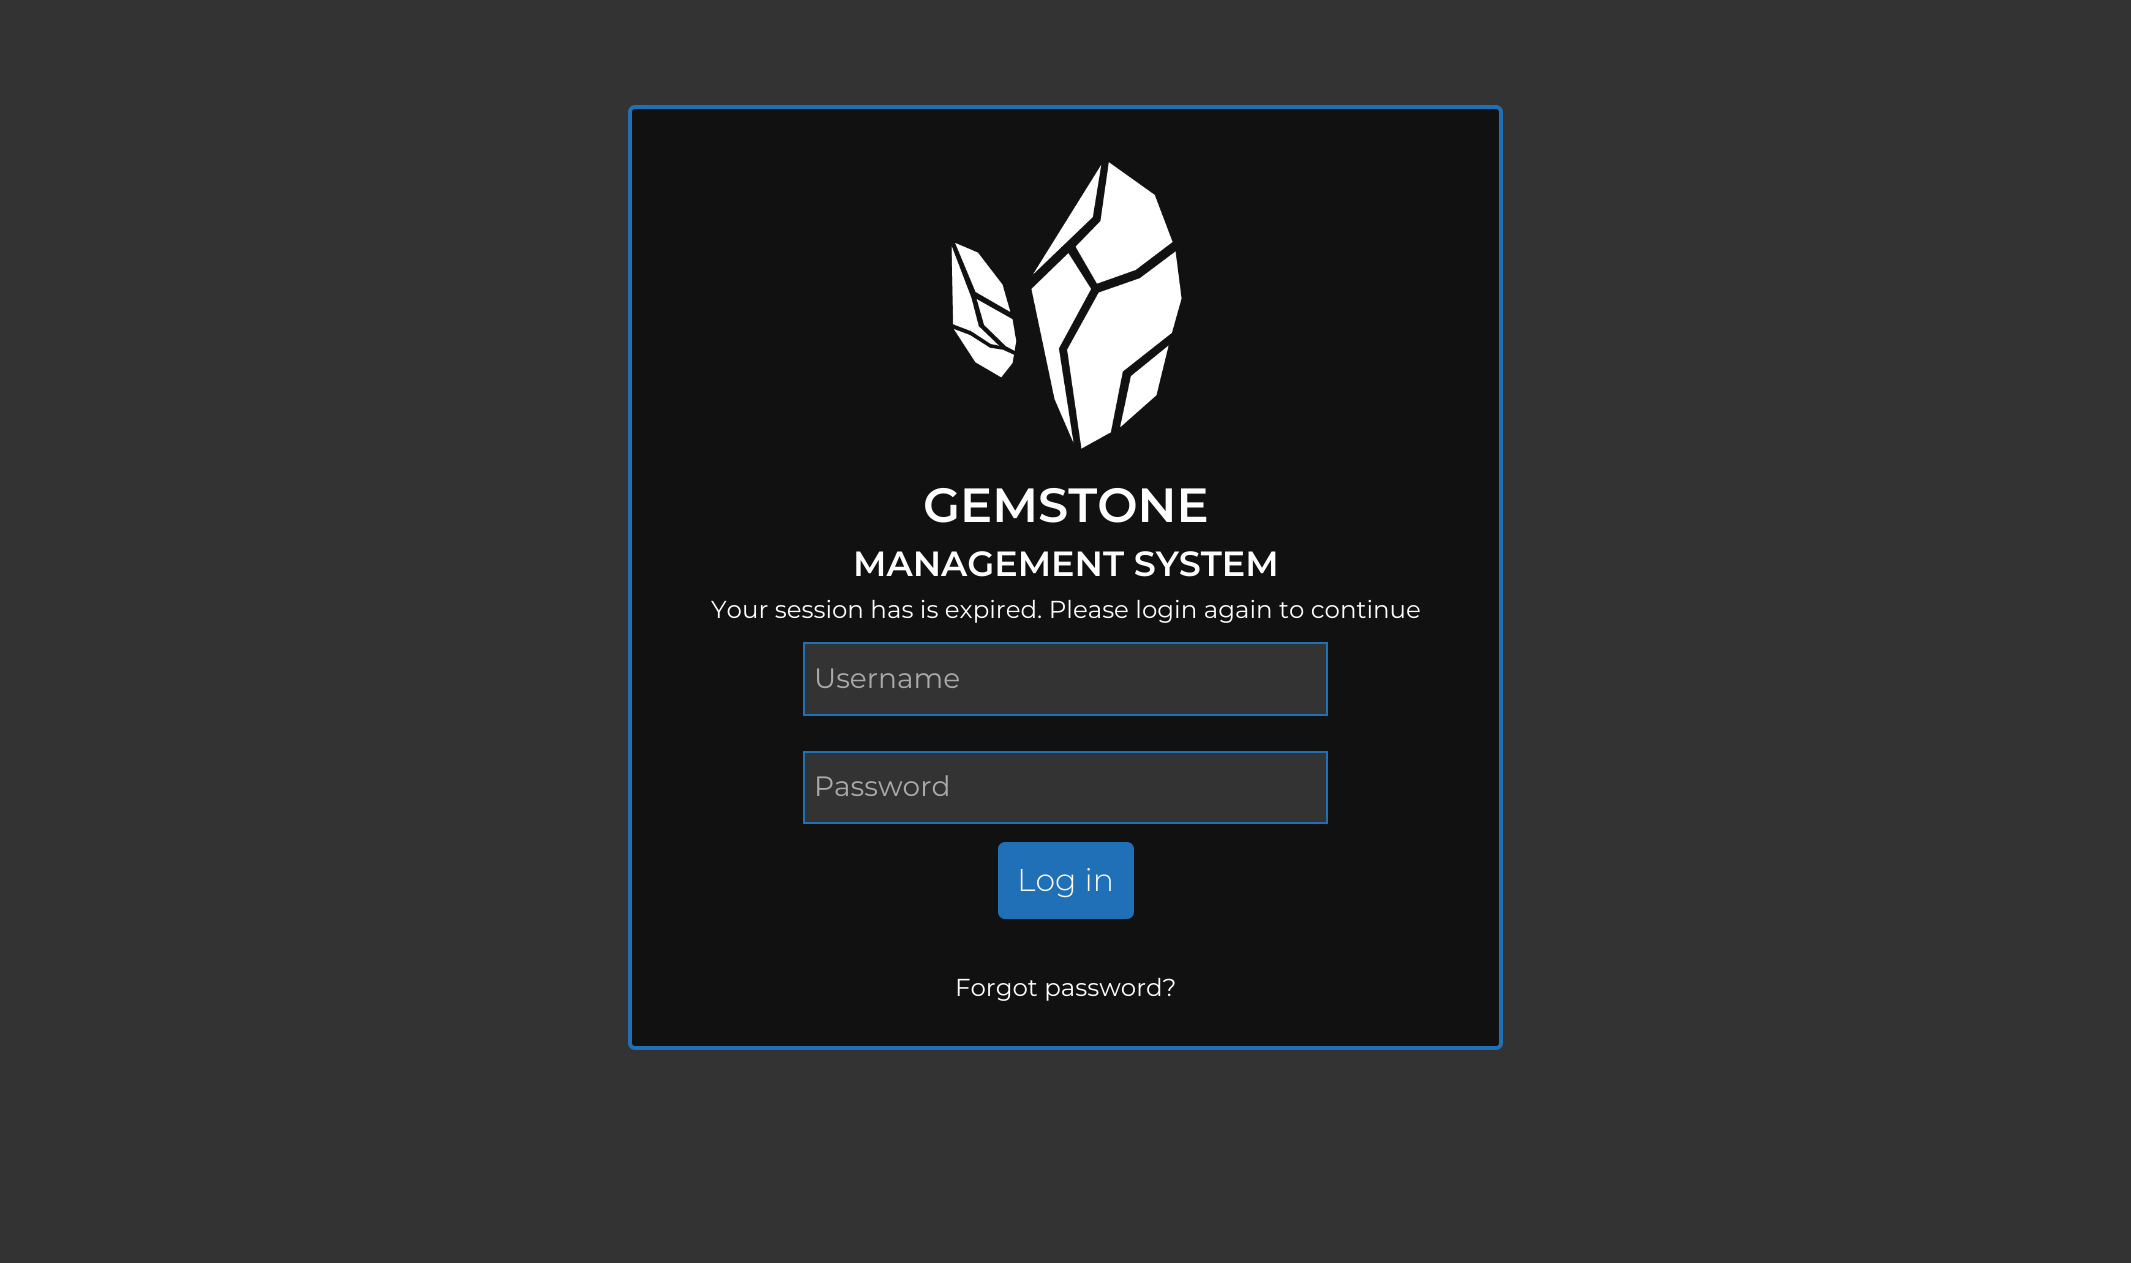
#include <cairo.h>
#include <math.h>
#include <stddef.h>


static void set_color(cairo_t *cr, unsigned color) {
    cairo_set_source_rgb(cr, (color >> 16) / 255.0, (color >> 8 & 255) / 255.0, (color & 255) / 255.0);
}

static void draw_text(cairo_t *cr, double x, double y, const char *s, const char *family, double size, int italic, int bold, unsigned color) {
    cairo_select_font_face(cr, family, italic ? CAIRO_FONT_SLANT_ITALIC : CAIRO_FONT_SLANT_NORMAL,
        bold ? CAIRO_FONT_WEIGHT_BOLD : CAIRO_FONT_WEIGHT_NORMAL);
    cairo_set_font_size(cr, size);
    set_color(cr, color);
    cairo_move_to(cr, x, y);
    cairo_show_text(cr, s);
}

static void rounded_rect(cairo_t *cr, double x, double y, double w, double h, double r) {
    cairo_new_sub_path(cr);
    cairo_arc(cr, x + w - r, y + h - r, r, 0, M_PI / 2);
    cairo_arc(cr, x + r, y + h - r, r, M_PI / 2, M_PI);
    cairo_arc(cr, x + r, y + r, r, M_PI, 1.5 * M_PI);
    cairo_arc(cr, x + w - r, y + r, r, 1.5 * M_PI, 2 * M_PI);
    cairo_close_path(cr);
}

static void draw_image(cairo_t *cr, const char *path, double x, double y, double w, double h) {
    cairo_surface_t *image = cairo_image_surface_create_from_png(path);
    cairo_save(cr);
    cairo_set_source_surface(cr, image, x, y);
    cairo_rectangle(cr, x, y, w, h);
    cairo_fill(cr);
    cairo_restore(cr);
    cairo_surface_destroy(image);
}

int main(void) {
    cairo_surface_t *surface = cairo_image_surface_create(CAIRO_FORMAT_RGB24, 2131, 1263);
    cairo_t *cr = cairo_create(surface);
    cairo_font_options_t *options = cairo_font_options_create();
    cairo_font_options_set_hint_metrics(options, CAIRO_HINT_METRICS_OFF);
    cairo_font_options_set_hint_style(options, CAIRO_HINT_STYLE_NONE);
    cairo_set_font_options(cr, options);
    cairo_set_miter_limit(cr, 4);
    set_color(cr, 0x333333);
    cairo_paint(cr);
    set_color(cr, 0x111111);
    rounded_rect(cr, 630, 107, 871, 941, 5);
    cairo_fill_preserve(cr);
    set_color(cr, 0x2070B7);
    cairo_set_line_width(cr, 4);
    cairo_stroke(cr);
    draw_image(cr, "assets/img1.png", 951, 162, 231, 287);
    draw_text(cr, 923, 522, "GEMSTONE", "Montserrat SemiBold", 48, 0, 0, 0xFEFEFE);
    draw_text(cr, 853, 576, "MANAGEMENT SYSTEM", "Montserrat SemiBold", 35, 0, 0, 0xFEFEFE);
    draw_text(cr, 711, 618, "Your session has is expired. Please login again to continue", "Montserrat", 24.5, 0, 0, 0xFEFEFE);
    set_color(cr, 0x333333);
    cairo_rectangle(cr, 804, 643, 523, 72);
    cairo_fill_preserve(cr);
    set_color(cr, 0x2070B7);
    cairo_set_line_width(cr, 2);
    cairo_stroke(cr);
    draw_text(cr, 814, 688, "Username", "Montserrat", 28, 0, 0, 0xAAAAAA);
    set_color(cr, 0x333333);
    cairo_rectangle(cr, 804, 752, 523, 71);
    cairo_fill_preserve(cr);
    set_color(cr, 0x2070B7);
    cairo_stroke(cr);
    draw_text(cr, 814, 796, "Password", "Montserrat", 28, 0, 0, 0xAAAAAA);
    set_color(cr, 0x2070B7);
    rounded_rect(cr, 999, 843, 134, 75, 6);
    cairo_fill_preserve(cr);
    cairo_stroke(cr);
    draw_text(cr, 1017, 891, "Log in", "Montserrat Light", 31.5, 0, 0, 0xFEFEFE);
    draw_text(cr, 955, 996, "Forgot password?", "Montserrat", 24.5, 0, 0, 0xFEFEFE);
    cairo_surface_write_to_png(surface, "output.png");
    cairo_font_options_destroy(options);
    cairo_destroy(cr);
    cairo_surface_destroy(surface);
    return 0;
}
